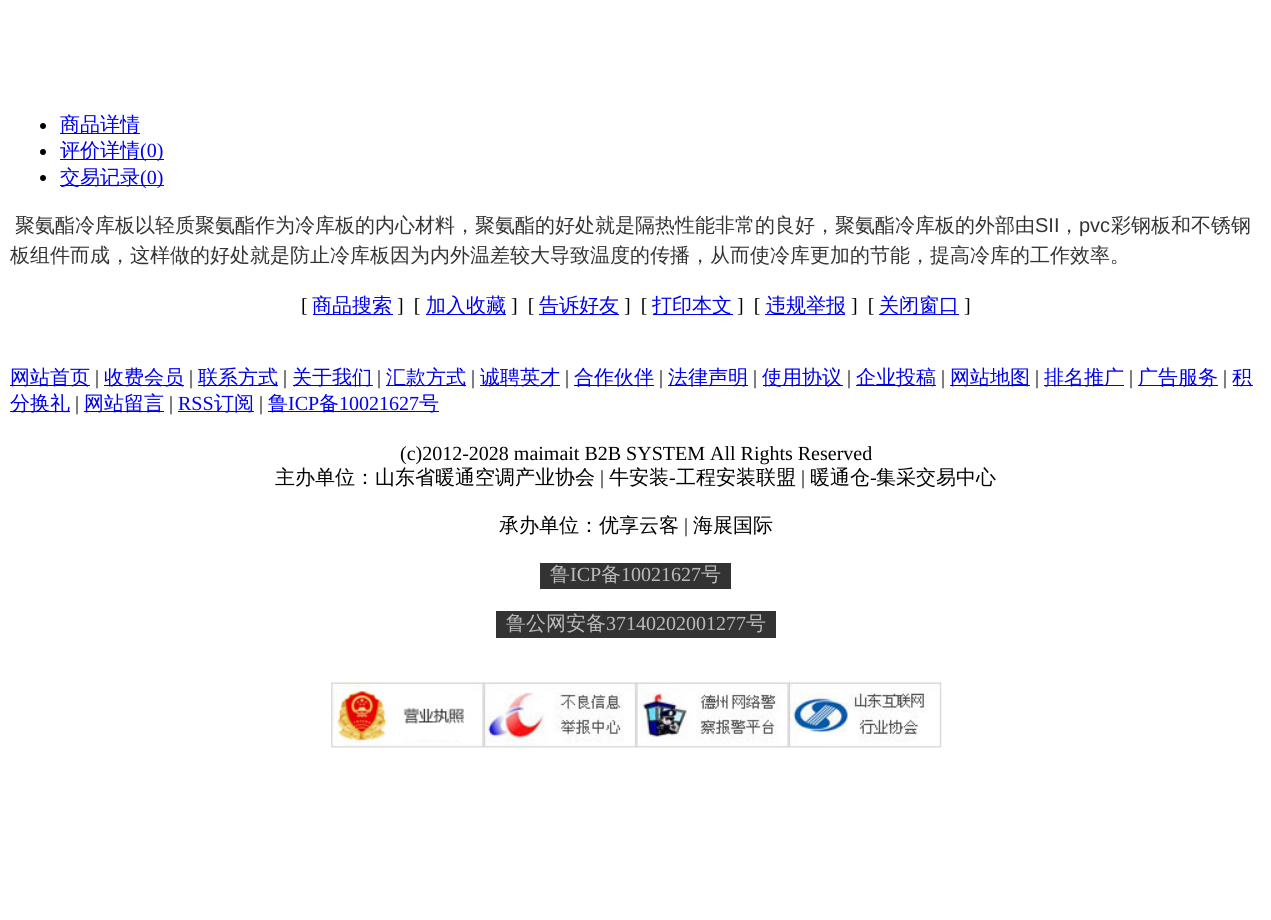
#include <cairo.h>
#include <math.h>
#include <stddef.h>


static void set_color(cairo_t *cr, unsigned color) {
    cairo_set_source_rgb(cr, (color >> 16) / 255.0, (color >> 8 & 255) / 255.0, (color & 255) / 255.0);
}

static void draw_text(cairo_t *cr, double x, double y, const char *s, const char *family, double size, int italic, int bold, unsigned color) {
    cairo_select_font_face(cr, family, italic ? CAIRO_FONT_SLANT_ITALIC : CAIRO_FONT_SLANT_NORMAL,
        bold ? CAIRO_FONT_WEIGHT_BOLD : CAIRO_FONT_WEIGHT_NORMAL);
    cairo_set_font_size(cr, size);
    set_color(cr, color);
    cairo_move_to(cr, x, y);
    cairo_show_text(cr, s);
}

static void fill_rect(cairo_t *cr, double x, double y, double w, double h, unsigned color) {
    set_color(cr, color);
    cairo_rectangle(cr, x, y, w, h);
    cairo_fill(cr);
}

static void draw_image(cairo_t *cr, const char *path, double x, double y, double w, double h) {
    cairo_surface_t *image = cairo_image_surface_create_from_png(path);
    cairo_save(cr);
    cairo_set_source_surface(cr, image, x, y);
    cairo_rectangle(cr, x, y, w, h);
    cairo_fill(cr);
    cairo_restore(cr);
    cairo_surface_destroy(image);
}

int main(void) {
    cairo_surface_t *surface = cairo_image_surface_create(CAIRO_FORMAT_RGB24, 1271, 920);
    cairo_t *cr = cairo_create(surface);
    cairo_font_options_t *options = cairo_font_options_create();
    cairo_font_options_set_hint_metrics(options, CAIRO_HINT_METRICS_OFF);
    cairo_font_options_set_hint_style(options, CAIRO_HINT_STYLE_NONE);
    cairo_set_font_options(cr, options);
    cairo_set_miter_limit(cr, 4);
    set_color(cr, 0xFFFFFF);
    cairo_paint(cr);
    set_color(cr, 0x000000);
    cairo_arc(cr, 43, 126, 3, 0, 2 * M_PI);
    cairo_fill(cr);
    fill_rect(cr, 60, 133, 80, 1, 0x0000EE);
    draw_text(cr, 60, 131, "商品详情", "WenQuanYi Zen Hei Medium", 20, 0, 0, 0x0000EE);
    set_color(cr, 0x000000);
    cairo_new_path(cr);
    cairo_arc(cr, 43, 152, 3, 0, 2 * M_PI);
    cairo_fill(cr);
    fill_rect(cr, 60, 159, 104, 1, 0x0000EE);
    draw_text(cr, 60, 157, "评价详情", "WenQuanYi Zen Hei Medium", 20, 0, 0, 0x0000EE);
    draw_text(cr, 140, 157, "(0)", "Liberation Serif", 20, 0, 0, 0x0000EE);
    set_color(cr, 0x000000);
    cairo_new_path(cr);
    cairo_arc(cr, 43, 178, 3, 0, 2 * M_PI);
    cairo_fill(cr);
    fill_rect(cr, 60, 185, 104, 1, 0x0000EE);
    draw_text(cr, 60, 184, "交易记录", "WenQuanYi Zen Hei Medium", 20, 0, 0, 0x0000EE);
    draw_text(cr, 140, 184, "(0)", "Liberation Serif", 20, 0, 0, 0x0000EE);
    draw_text(cr, 15, 232, "聚氨酯冷库板以轻质聚氨酯作为冷库板的内心材料，聚氨酯的好处就是隔热性能非常的良好，聚氨酯冷库板的外部由", "WenQuanYi Zen Hei Medium", 20, 0, 0, 0x333333);
    draw_text(cr, 1035, 232, "SII", "Liberation Sans", 20, 0, 0, 0x333333);
    draw_text(cr, 1059, 232, "，", "WenQuanYi Zen Hei Medium", 20, 0, 0, 0x333333);
    draw_text(cr, 1079, 232, "pvc", "Liberation Sans", 20, 0, 0, 0x333333);
    draw_text(cr, 1111, 232, "彩钢板和不锈钢", "WenQuanYi Zen Hei Medium", 20, 0, 0, 0x333333);
    draw_text(cr, 10, 262, "板组件而成，这样做的好处就是防止冷库板因为内外温差较大导致温度的传播，从而使冷库更加的节能，提高冷库的工作效率。", "WenQuanYi Zen Hei Medium", 20, 0, 0, 0x333333);
    draw_text(cr, 301, 312, "[", "Liberation Serif", 20, 0, 0, 0x000000);
    fill_rect(cr, 313, 314, 80, 1, 0x0000EE);
    draw_text(cr, 312, 312, "商品搜索", "WenQuanYi Zen Hei Medium", 20, 0, 0, 0x0000EE);
    draw_text(cr, 397, 312, "]  [", "Liberation Serif", 20, 0, 0, 0x000000);
    fill_rect(cr, 426, 314, 80, 1, 0x0000EE);
    draw_text(cr, 426, 312, "加入收藏", "WenQuanYi Zen Hei Medium", 20, 0, 0, 0x0000EE);
    draw_text(cr, 511, 312, "]  [", "Liberation Serif", 20, 0, 0, 0x000000);
    fill_rect(cr, 539, 314, 80, 1, 0x0000EE);
    draw_text(cr, 539, 312, "告诉好友", "WenQuanYi Zen Hei Medium", 20, 0, 0, 0x0000EE);
    draw_text(cr, 624, 312, "]  [", "Liberation Serif", 20, 0, 0, 0x000000);
    fill_rect(cr, 653, 314, 80, 1, 0x0000EE);
    draw_text(cr, 652, 312, "打印本文", "WenQuanYi Zen Hei Medium", 20, 0, 0, 0x0000EE);
    draw_text(cr, 737, 312, "]  [", "Liberation Serif", 20, 0, 0, 0x000000);
    fill_rect(cr, 765, 314, 80, 1, 0x0000EE);
    draw_text(cr, 766, 312, "违规举报", "WenQuanYi Zen Hei Medium", 20, 0, 0, 0x0000EE);
    draw_text(cr, 851, 312, "]  [", "Liberation Serif", 20, 0, 0, 0x000000);
    fill_rect(cr, 879, 314, 80, 1, 0x0000EE);
    draw_text(cr, 879, 312, "关闭窗口", "WenQuanYi Zen Hei Medium", 20, 0, 0, 0x0000EE);
    draw_text(cr, 964, 312, "]", "Liberation Serif", 20, 0, 0, 0x000000);
    fill_rect(cr, 10, 385, 80, 1, 0x0000EE);
    draw_text(cr, 10, 384, "网站首页", "WenQuanYi Zen Hei Medium", 20, 0, 0, 0x0000EE);
    draw_text(cr, 95, 384, "|", "Liberation Serif", 20, 0, 0, 0x000000);
    fill_rect(cr, 104, 385, 80, 1, 0x0000EE);
    draw_text(cr, 104, 384, "收费会员", "WenQuanYi Zen Hei Medium", 20, 0, 0, 0x0000EE);
    draw_text(cr, 189, 384, "|", "Liberation Serif", 20, 0, 0, 0x000000);
    fill_rect(cr, 198, 385, 80, 1, 0x0000EE);
    draw_text(cr, 198, 384, "联系方式", "WenQuanYi Zen Hei Medium", 20, 0, 0, 0x0000EE);
    draw_text(cr, 283, 384, "|", "Liberation Serif", 20, 0, 0, 0x000000);
    fill_rect(cr, 293, 385, 80, 1, 0x0000EE);
    draw_text(cr, 292, 384, "关于我们", "WenQuanYi Zen Hei Medium", 20, 0, 0, 0x0000EE);
    draw_text(cr, 377, 384, "|", "Liberation Serif", 20, 0, 0, 0x000000);
    fill_rect(cr, 386, 385, 80, 1, 0x0000EE);
    draw_text(cr, 386, 384, "汇款方式", "WenQuanYi Zen Hei Medium", 20, 0, 0, 0x0000EE);
    draw_text(cr, 471, 384, "|", "Liberation Serif", 20, 0, 0, 0x000000);
    fill_rect(cr, 480, 385, 80, 1, 0x0000EE);
    draw_text(cr, 480, 384, "诚聘英才", "WenQuanYi Zen Hei Medium", 20, 0, 0, 0x0000EE);
    draw_text(cr, 565, 384, "|", "Liberation Serif", 20, 0, 0, 0x000000);
    fill_rect(cr, 574, 385, 80, 1, 0x0000EE);
    draw_text(cr, 574, 384, "合作伙伴", "WenQuanYi Zen Hei Medium", 20, 0, 0, 0x0000EE);
    draw_text(cr, 659, 384, "|", "Liberation Serif", 20, 0, 0, 0x000000);
    fill_rect(cr, 668, 385, 80, 1, 0x0000EE);
    draw_text(cr, 668, 384, "法律声明", "WenQuanYi Zen Hei Medium", 20, 0, 0, 0x0000EE);
    draw_text(cr, 753, 384, "|", "Liberation Serif", 20, 0, 0, 0x000000);
    fill_rect(cr, 763, 385, 80, 1, 0x0000EE);
    draw_text(cr, 762, 384, "使用协议", "WenQuanYi Zen Hei Medium", 20, 0, 0, 0x0000EE);
    draw_text(cr, 847, 384, "|", "Liberation Serif", 20, 0, 0, 0x000000);
    fill_rect(cr, 856, 385, 80, 1, 0x0000EE);
    draw_text(cr, 856, 384, "企业投稿", "WenQuanYi Zen Hei Medium", 20, 0, 0, 0x0000EE);
    draw_text(cr, 941, 384, "|", "Liberation Serif", 20, 0, 0, 0x000000);
    fill_rect(cr, 950, 385, 80, 1, 0x0000EE);
    draw_text(cr, 950, 384, "网站地图", "WenQuanYi Zen Hei Medium", 20, 0, 0, 0x0000EE);
    draw_text(cr, 1035, 384, "|", "Liberation Serif", 20, 0, 0, 0x000000);
    fill_rect(cr, 1044, 385, 80, 1, 0x0000EE);
    draw_text(cr, 1044, 384, "排名推广", "WenQuanYi Zen Hei Medium", 20, 0, 0, 0x0000EE);
    draw_text(cr, 1129, 384, "|", "Liberation Serif", 20, 0, 0, 0x000000);
    fill_rect(cr, 1138, 385, 80, 1, 0x0000EE);
    draw_text(cr, 1138, 384, "广告服务", "WenQuanYi Zen Hei Medium", 20, 0, 0, 0x0000EE);
    draw_text(cr, 1223, 384, "|", "Liberation Serif", 20, 0, 0, 0x000000);
    fill_rect(cr, 1233, 385, 20, 1, 0x0000EE);
    draw_text(cr, 1232, 384, "积", "WenQuanYi Zen Hei Medium", 20, 0, 0, 0x0000EE);
    fill_rect(cr, 10, 411, 60, 1, 0x0000EE);
    draw_text(cr, 10, 410, "分换礼", "WenQuanYi Zen Hei Medium", 20, 0, 0, 0x0000EE);
    draw_text(cr, 75, 410, "|", "Liberation Serif", 20, 0, 0, 0x000000);
    fill_rect(cr, 84, 411, 80, 1, 0x0000EE);
    draw_text(cr, 84, 410, "网站留言", "WenQuanYi Zen Hei Medium", 20, 0, 0, 0x0000EE);
    draw_text(cr, 169, 410, "|", "Liberation Serif", 20, 0, 0, 0x000000);
    draw_text(cr, 178, 410, "RSS", "Liberation Serif", 20, 0, 0, 0x0000EE);
    fill_rect(cr, 178, 411, 76, 1, 0x0000EE);
    draw_text(cr, 214, 410, "订阅", "WenQuanYi Zen Hei Medium", 20, 0, 0, 0x0000EE);
    draw_text(cr, 259, 410, "|", "Liberation Serif", 20, 0, 0, 0x000000);
    fill_rect(cr, 268, 411, 171, 1, 0x0000EE);
    draw_text(cr, 268, 410, "鲁", "WenQuanYi Zen Hei Medium", 20, 0, 0, 0x0000EE);
    draw_text(cr, 288, 410, "ICP", "Liberation Serif", 20, 0, 0, 0x0000EE);
    draw_text(cr, 319, 410, "备", "WenQuanYi Zen Hei Medium", 20, 0, 0, 0x0000EE);
    draw_text(cr, 339, 410, "10021627", "Liberation Serif", 20, 0, 0, 0x0000EE);
    draw_text(cr, 419, 410, "号", "WenQuanYi Zen Hei Medium", 20, 0, 0, 0x0000EE);
    draw_text(cr, 400, 460, "(c)2012-2028 maimait B2B SYSTEM All Rights Reserved", "Liberation Serif", 20, 0, 0, 0x000000);
    draw_text(cr, 275, 484, "主办单位：山东省暖通空调产业协会", "WenQuanYi Zen Hei Medium", 20, 0, 0, 0x000000);
    draw_text(cr, 600, 484, "|", "Liberation Serif", 20, 0, 0, 0x000000);
    draw_text(cr, 609, 484, "牛安装", "WenQuanYi Zen Hei Medium", 20, 0, 0, 0x000000);
    draw_text(cr, 669, 484, "-", "Liberation Serif", 20, 0, 0, 0x000000);
    draw_text(cr, 676, 484, "工程安装联盟", "WenQuanYi Zen Hei Medium", 20, 0, 0, 0x000000);
    draw_text(cr, 801, 484, "|", "Liberation Serif", 20, 0, 0, 0x000000);
    draw_text(cr, 810, 484, "暖通仓", "WenQuanYi Zen Hei Medium", 20, 0, 0, 0x000000);
    draw_text(cr, 870, 484, "-", "Liberation Serif", 20, 0, 0, 0x000000);
    draw_text(cr, 876, 484, "集采交易中心", "WenQuanYi Zen Hei Medium", 20, 0, 0, 0x000000);
    draw_text(cr, 499, 532, "承办单位：优享云客", "WenQuanYi Zen Hei Medium", 20, 0, 0, 0x000000);
    draw_text(cr, 684, 532, "|", "Liberation Serif", 20, 0, 0, 0x000000);
    draw_text(cr, 693, 532, "海展国际", "WenQuanYi Zen Hei Medium", 20, 0, 0, 0x000000);
    fill_rect(cr, 540, 563, 191, 26, 0x333333);
    draw_text(cr, 550, 581, "鲁", "WenQuanYi Zen Hei Medium", 20, 0, 0, 0xBBBBBB);
    draw_text(cr, 570, 581, "ICP", "Liberation Serif", 20, 0, 0, 0xBBBBBB);
    draw_text(cr, 601, 581, "备", "WenQuanYi Zen Hei Medium", 20, 0, 0, 0xBBBBBB);
    draw_text(cr, 621, 581, "10021627", "Liberation Serif", 20, 0, 0, 0xBBBBBB);
    draw_text(cr, 701, 581, "号", "WenQuanYi Zen Hei Medium", 20, 0, 0, 0xBBBBBB);
    fill_rect(cr, 496, 611, 280, 27, 0x333333);
    draw_text(cr, 506, 630, "鲁公网安备", "WenQuanYi Zen Hei Medium", 20, 0, 0, 0xBBBBBB);
    draw_text(cr, 606, 630, "37140202001277", "Liberation Serif", 20, 0, 0, 0xBBBBBB);
    draw_text(cr, 746, 630, "号", "WenQuanYi Zen Hei Medium", 20, 0, 0, 0xBBBBBB);
    draw_image(cr, "assets/img1.png", 331, 682, 153, 66);
    draw_image(cr, "assets/img2.png", 483, 682, 154, 66);
    draw_image(cr, "assets/img3.png", 636, 682, 153, 66);
    draw_image(cr, "assets/img4.png", 788, 682, 154, 66);
    cairo_surface_write_to_png(surface, "output.png");
    cairo_font_options_destroy(options);
    cairo_destroy(cr);
    cairo_surface_destroy(surface);
    return 0;
}
